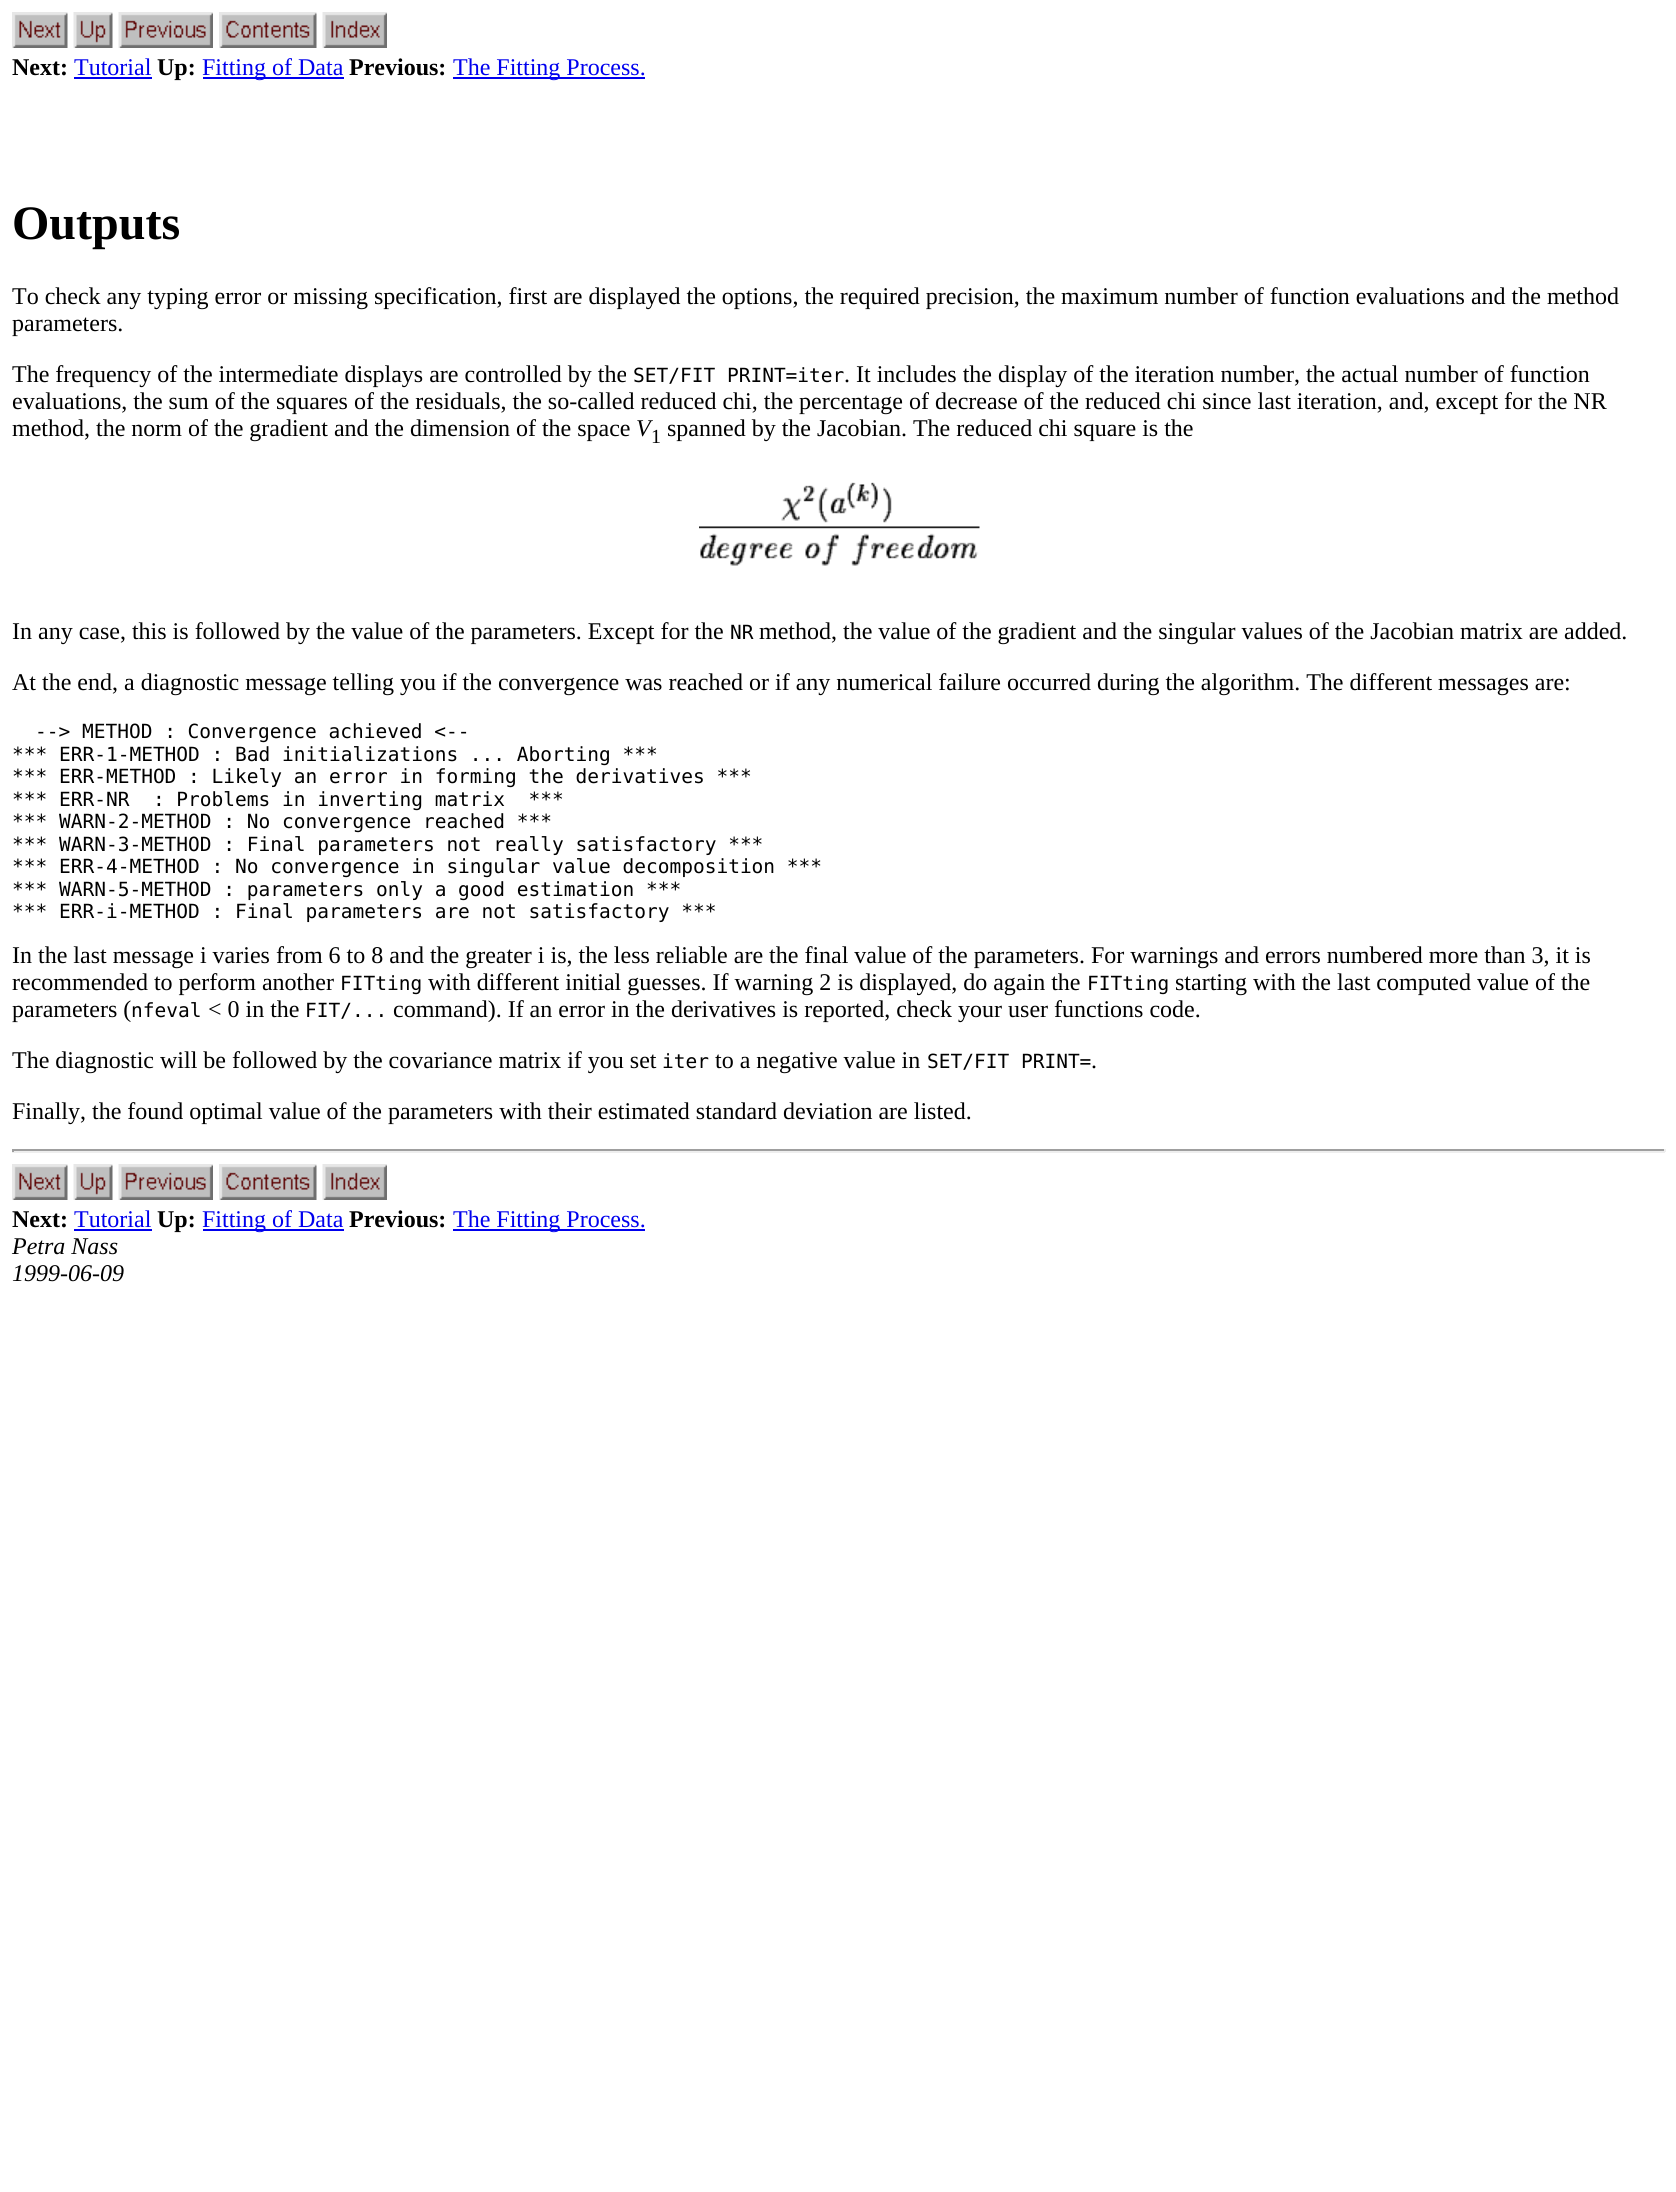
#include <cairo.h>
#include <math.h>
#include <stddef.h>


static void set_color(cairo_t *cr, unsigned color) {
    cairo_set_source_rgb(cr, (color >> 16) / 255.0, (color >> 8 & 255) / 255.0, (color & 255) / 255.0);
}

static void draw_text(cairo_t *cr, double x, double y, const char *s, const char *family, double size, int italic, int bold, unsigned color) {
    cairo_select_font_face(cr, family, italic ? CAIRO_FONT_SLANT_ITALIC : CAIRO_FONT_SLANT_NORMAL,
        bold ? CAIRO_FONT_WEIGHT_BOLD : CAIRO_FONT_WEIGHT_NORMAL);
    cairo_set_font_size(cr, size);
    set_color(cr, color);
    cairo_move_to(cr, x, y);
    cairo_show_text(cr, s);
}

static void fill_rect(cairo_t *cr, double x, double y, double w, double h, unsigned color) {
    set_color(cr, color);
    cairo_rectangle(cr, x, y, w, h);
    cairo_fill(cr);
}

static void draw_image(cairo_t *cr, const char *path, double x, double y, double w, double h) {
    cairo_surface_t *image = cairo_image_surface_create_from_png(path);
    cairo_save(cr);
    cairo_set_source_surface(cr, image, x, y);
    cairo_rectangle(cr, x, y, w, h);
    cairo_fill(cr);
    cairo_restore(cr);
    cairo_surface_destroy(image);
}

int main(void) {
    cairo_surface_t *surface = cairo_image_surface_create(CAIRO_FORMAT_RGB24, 1676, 2192);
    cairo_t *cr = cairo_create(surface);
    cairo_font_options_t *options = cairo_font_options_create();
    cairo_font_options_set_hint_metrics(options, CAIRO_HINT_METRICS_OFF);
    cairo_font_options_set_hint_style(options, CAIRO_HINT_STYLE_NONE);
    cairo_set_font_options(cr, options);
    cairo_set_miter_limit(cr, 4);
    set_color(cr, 0xFFFFFF);
    cairo_paint(cr);
    draw_image(cr, "assets/img1.png", 12, 12, 56, 36);
    draw_image(cr, "assets/img2.png", 73, 12, 40, 36);
    draw_image(cr, "assets/img3.png", 118, 12, 95, 36);
    draw_image(cr, "assets/img4.png", 219, 12, 98, 36);
    draw_image(cr, "assets/img5.png", 322, 12, 65, 36);
    draw_text(cr, 12, 75, "Next:", "Liberation Serif", 24, 0, 1, 0x000000);
    draw_text(cr, 74, 75, "Tutorial", "Liberation Serif", 24, 0, 0, 0x0000EE);
    fill_rect(cr, 74, 77, 78, 2, 0x0000EE);
    draw_text(cr, 157, 75, "Up:", "Liberation Serif", 24, 0, 1, 0x000000);
    fill_rect(cr, 203, 77, 141, 2, 0x0000EE);
    draw_text(cr, 202, 75, "Fitting of Data", "Liberation Serif", 24, 0, 0, 0x0000EE);
    draw_text(cr, 349, 75, "Previous:", "Liberation Serif", 24, 0, 1, 0x000000);
    fill_rect(cr, 453, 77, 192, 2, 0x0000EE);
    draw_text(cr, 453, 75, "The Fitting Process.", "Liberation Serif", 24, 0, 0, 0x0000EE);
    draw_text(cr, 12, 239, "Outputs", "Liberation Serif", 48, 0, 1, 0x000000);
    draw_text(cr, 12, 304, "To check any typing error or missing specification, first are displayed the options, the required precision, the maximum number of function evaluations and the method", "Liberation Serif", 24, 0, 0, 0x000000);
    draw_text(cr, 12, 331, "parameters.", "Liberation Serif", 24, 0, 0, 0x000000);
    draw_text(cr, 12, 382, "The frequency of the intermediate displays are controlled by the", "Liberation Serif", 24, 0, 0, 0x000000);
    draw_text(cr, 633, 382, "SET/FIT PRINT=iter", "DejaVu Sans Mono", 19.5, 0, 0, 0x000000);
    draw_text(cr, 844, 382, ". It includes the display of the iteration number, the actual number of function", "Liberation Serif", 24, 0, 0, 0x000000);
    draw_text(cr, 12, 409, "evaluations, the sum of the squares of the residuals, the so-called reduced chi, the percentage of decrease of the reduced chi since last iteration, and, except for the NR", "Liberation Serif", 24, 0, 0, 0x000000);
    draw_text(cr, 12, 436, "method, the norm of the gradient and the dimension of the space", "Liberation Serif", 24, 0, 0, 0x000000);
    draw_text(cr, 636, 436, "V", "Liberation Serif", 24, 1, 0, 0x000000);
    draw_text(cr, 651, 443, "1", "Liberation Serif", 20, 0, 0, 0x000000);
    draw_text(cr, 667, 436, "spanned by the Jacobian. The reduced chi square is the", "Liberation Serif", 24, 0, 0, 0x000000);
    draw_image(cr, "assets/img6.png", 699, 482, 281, 84);
    draw_text(cr, 12, 639, "In any case, this is followed by the value of the parameters. Except for the", "Liberation Serif", 24, 0, 0, 0x000000);
    draw_text(cr, 730, 639, "NR", "DejaVu Sans Mono", 19.5, 0, 0, 0x000000);
    draw_text(cr, 759, 639, "method, the value of the gradient and the singular values of the Jacobian matrix are added.", "Liberation Serif", 24, 0, 0, 0x000000);
    draw_text(cr, 12, 690, "At the end, a diagnostic message telling you if the convergence was reached or if any numerical failure occurred during the algorithm. The different messages are:", "Liberation Serif", 24, 0, 0, 0x000000);
    draw_text(cr, 35, 738, "--> METHOD : Convergence achieved <--", "DejaVu Sans Mono", 19.5, 0, 0, 0x000000);
    draw_text(cr, 12, 761, "*** ERR-1-METHOD : Bad initializations ... Aborting ***", "DejaVu Sans Mono", 19.5, 0, 0, 0x000000);
    draw_text(cr, 12, 783, "*** ERR-METHOD : Likely an error in forming the derivatives ***", "DejaVu Sans Mono", 19.5, 0, 0, 0x000000);
    draw_text(cr, 12, 806, "*** ERR-NR  : Problems in inverting matrix  ***", "DejaVu Sans Mono", 19.5, 0, 0, 0x000000);
    draw_text(cr, 12, 828, "*** WARN-2-METHOD : No convergence reached ***", "DejaVu Sans Mono", 19.5, 0, 0, 0x000000);
    draw_text(cr, 12, 851, "*** WARN-3-METHOD : Final parameters not really satisfactory ***", "DejaVu Sans Mono", 19.5, 0, 0, 0x000000);
    draw_text(cr, 12, 873, "*** ERR-4-METHOD : No convergence in singular value decomposition ***", "DejaVu Sans Mono", 19.5, 0, 0, 0x000000);
    draw_text(cr, 12, 896, "*** WARN-5-METHOD : parameters only a good estimation ***", "DejaVu Sans Mono", 19.5, 0, 0, 0x000000);
    draw_text(cr, 12, 918, "*** ERR-i-METHOD : Final parameters are not satisfactory ***", "DejaVu Sans Mono", 19.5, 0, 0, 0x000000);
    draw_text(cr, 12, 963, "In the last message i varies from 6 to 8 and the greater i is, the less reliable are the final value of the parameters. For warnings and errors numbered more than 3, it is", "Liberation Serif", 24, 0, 0, 0x000000);
    draw_text(cr, 12, 990, "recommended to perform another", "Liberation Serif", 24, 0, 0, 0x000000);
    draw_text(cr, 340, 990, "FITting", "DejaVu Sans Mono", 19.5, 0, 0, 0x000000);
    draw_text(cr, 428, 990, "with different initial guesses. If warning 2 is displayed, do again the", "Liberation Serif", 24, 0, 0, 0x000000);
    draw_text(cr, 1087, 990, "FITting", "DejaVu Sans Mono", 19.5, 0, 0, 0x000000);
    draw_text(cr, 1175, 990, "starting with the last computed value of the", "Liberation Serif", 24, 0, 0, 0x000000);
    draw_text(cr, 12, 1017, "parameters (", "Liberation Serif", 24, 0, 0, 0x000000);
    draw_text(cr, 131, 1017, "nfeval", "DejaVu Sans Mono", 19.5, 0, 0, 0x000000);
    draw_text(cr, 208, 1017, "< 0 in the", "Liberation Serif", 24, 0, 0, 0x000000);
    draw_text(cr, 305, 1017, "FIT/...", "DejaVu Sans Mono", 19.5, 0, 0, 0x000000);
    draw_text(cr, 393, 1017, "command). If an error in the derivatives is reported, check your user functions code.", "Liberation Serif", 24, 0, 0, 0x000000);
    draw_text(cr, 12, 1068, "The diagnostic will be followed by the covariance matrix if you set", "Liberation Serif", 24, 0, 0, 0x000000);
    draw_text(cr, 662, 1068, "iter", "DejaVu Sans Mono", 19.5, 0, 0, 0x000000);
    draw_text(cr, 715, 1068, "to a negative value in", "Liberation Serif", 24, 0, 0, 0x000000);
    draw_text(cr, 927, 1068, "SET/FIT PRINT=", "DejaVu Sans Mono", 19.5, 0, 0, 0x000000);
    draw_text(cr, 1091, 1068, ".", "Liberation Serif", 24, 0, 0, 0x000000);
    draw_text(cr, 12, 1119, "Finally, the found optimal value of the parameters with their estimated standard deviation are listed.", "Liberation Serif", 24, 0, 0, 0x000000);
    fill_rect(cr, 12, 1149, 1653, 2, 0x9F9F9F);
    fill_rect(cr, 1664, 1149, 2, 3, 0xEEEEEE);
    fill_rect(cr, 12, 1151, 1653, 2, 0xEEEEEE);
    fill_rect(cr, 12, 1149, 2, 3, 0x9F9F9F);
    draw_image(cr, "assets/img1.png", 12, 1164, 56, 36);
    draw_image(cr, "assets/img2.png", 73, 1164, 40, 36);
    draw_image(cr, "assets/img3.png", 118, 1164, 95, 36);
    draw_image(cr, "assets/img4.png", 219, 1164, 98, 36);
    draw_image(cr, "assets/img5.png", 322, 1164, 65, 36);
    draw_text(cr, 12, 1227, "Next:", "Liberation Serif", 24, 0, 1, 0x000000);
    draw_text(cr, 74, 1227, "Tutorial", "Liberation Serif", 24, 0, 0, 0x0000EE);
    fill_rect(cr, 74, 1229, 78, 2, 0x0000EE);
    draw_text(cr, 157, 1227, "Up:", "Liberation Serif", 24, 0, 1, 0x000000);
    fill_rect(cr, 203, 1229, 141, 2, 0x0000EE);
    draw_text(cr, 202, 1227, "Fitting of Data", "Liberation Serif", 24, 0, 0, 0x0000EE);
    draw_text(cr, 349, 1227, "Previous:", "Liberation Serif", 24, 0, 1, 0x000000);
    fill_rect(cr, 453, 1229, 192, 2, 0x0000EE);
    draw_text(cr, 453, 1227, "The Fitting Process.", "Liberation Serif", 24, 0, 0, 0x0000EE);
    draw_text(cr, 12, 1254, "Petra Nass", "Liberation Serif", 24, 1, 0, 0x000000);
    draw_text(cr, 12, 1281, "1999-06-09", "Liberation Serif", 24, 1, 0, 0x000000);
    cairo_surface_write_to_png(surface, "output.png");
    cairo_font_options_destroy(options);
    cairo_destroy(cr);
    cairo_surface_destroy(surface);
    return 0;
}
